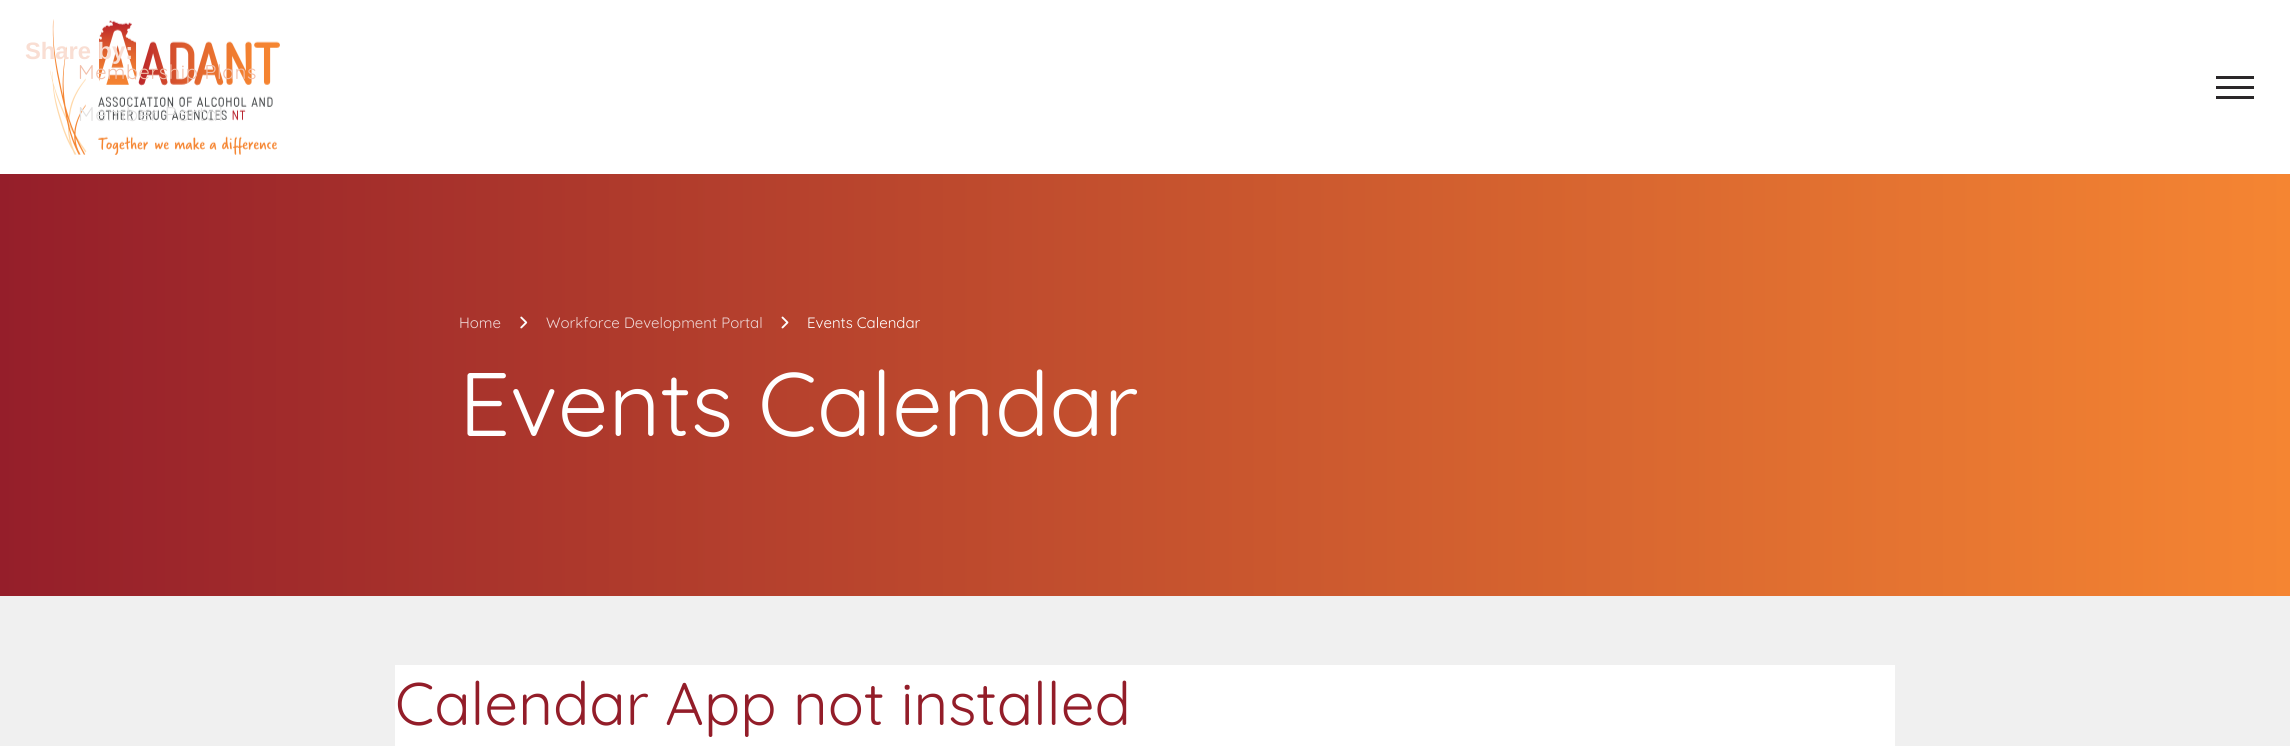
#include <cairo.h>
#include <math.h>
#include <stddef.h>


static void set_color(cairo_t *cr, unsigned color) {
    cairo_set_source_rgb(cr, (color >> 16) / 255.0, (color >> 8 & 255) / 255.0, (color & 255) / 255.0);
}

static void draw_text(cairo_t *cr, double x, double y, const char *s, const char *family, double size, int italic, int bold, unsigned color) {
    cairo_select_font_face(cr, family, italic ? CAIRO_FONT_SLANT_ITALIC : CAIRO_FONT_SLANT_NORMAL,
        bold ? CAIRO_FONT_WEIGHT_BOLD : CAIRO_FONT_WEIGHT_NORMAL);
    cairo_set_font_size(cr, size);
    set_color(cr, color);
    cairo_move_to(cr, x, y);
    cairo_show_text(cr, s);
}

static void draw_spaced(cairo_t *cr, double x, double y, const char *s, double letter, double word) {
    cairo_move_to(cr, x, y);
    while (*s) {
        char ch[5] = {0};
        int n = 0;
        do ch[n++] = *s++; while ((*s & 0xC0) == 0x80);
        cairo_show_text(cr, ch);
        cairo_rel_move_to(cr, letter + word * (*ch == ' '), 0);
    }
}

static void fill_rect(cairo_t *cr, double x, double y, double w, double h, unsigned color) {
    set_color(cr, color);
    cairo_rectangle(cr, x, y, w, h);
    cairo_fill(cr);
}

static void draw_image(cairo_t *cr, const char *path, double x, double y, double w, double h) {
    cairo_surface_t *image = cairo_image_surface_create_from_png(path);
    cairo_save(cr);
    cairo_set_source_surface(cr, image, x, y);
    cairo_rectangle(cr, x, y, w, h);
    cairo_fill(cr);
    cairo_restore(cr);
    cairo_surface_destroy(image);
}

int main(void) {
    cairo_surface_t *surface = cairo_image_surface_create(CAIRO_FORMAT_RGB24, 2290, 746);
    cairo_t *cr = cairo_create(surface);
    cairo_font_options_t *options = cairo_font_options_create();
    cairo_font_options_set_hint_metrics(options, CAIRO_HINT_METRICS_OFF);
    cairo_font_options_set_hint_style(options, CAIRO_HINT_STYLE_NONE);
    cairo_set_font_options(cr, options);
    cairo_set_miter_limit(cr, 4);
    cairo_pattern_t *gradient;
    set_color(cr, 0xF0F0F0);
    cairo_paint(cr);
    fill_rect(cr, 0, 0, 2290, 174, 0xFFFFFF);
    draw_image(cr, "assets/img1.png", 50, 19, 230, 136);
    draw_text(cr, 25, 59, "Share by:", "Liberation Sans", 23.75, 0, 1, 0xF9DED3);
    cairo_select_font_face(cr, "Quicksand", CAIRO_FONT_SLANT_NORMAL, CAIRO_FONT_WEIGHT_NORMAL);
    cairo_set_font_size(cr, 20);
    set_color(cr, 0xF2BFAA);
    draw_spaced(cr, 78, 79, "Membership Plans", 0.6, 0);
    set_color(cr, 0xE2E1E1);
    draw_spaced(cr, 78, 121, "Member Portal", 0.6, 0);
    fill_rect(cr, 2216, 76, 38, 3, 0x2A2829);
    fill_rect(cr, 2216, 86, 38, 3, 0x2A2829);
    fill_rect(cr, 2216, 96, 38, 3, 0x2A2829);
    gradient = cairo_pattern_create_linear(0, 385, 2290, 385);
    cairo_pattern_add_color_stop_rgba(gradient, 0, 0.584, 0.118, 0.165, 1);
    cairo_pattern_add_color_stop_rgba(gradient, 1, 0.961, 0.522, 0.196, 1);
    cairo_set_source(cr, gradient);
    cairo_pattern_destroy(gradient);
    cairo_rectangle(cr, 0, 174, 2290, 422);
    cairo_fill(cr);
    draw_text(cr, 459, 328, "Home", "Quicksand", 15, 0, 0, 0xEED6D5);
    draw_image(cr, "assets/img2.png", 520, 316, 8, 13);
    draw_text(cr, 546, 328, "Workforce Development Portal", "Quicksand", 15, 0, 0, 0xEED6D5);
    draw_image(cr, "assets/img3.png", 781, 316, 8, 13);
    draw_text(cr, 807, 328, "Events Calendar", "Quicksand", 15, 0, 0, 0xFFFFFF);
    draw_text(cr, 459, 436, "Events Calendar", "Quicksand", 90, 0, 0, 0xFFFFFF);
    fill_rect(cr, 395, 665, 1500, 81, 0xFFFFFF);
    draw_text(cr, 395, 725, "Calendar App not installed", "Quicksand", 60, 0, 0, 0x931D29);
    cairo_surface_write_to_png(surface, "output.png");
    cairo_font_options_destroy(options);
    cairo_destroy(cr);
    cairo_surface_destroy(surface);
    return 0;
}
